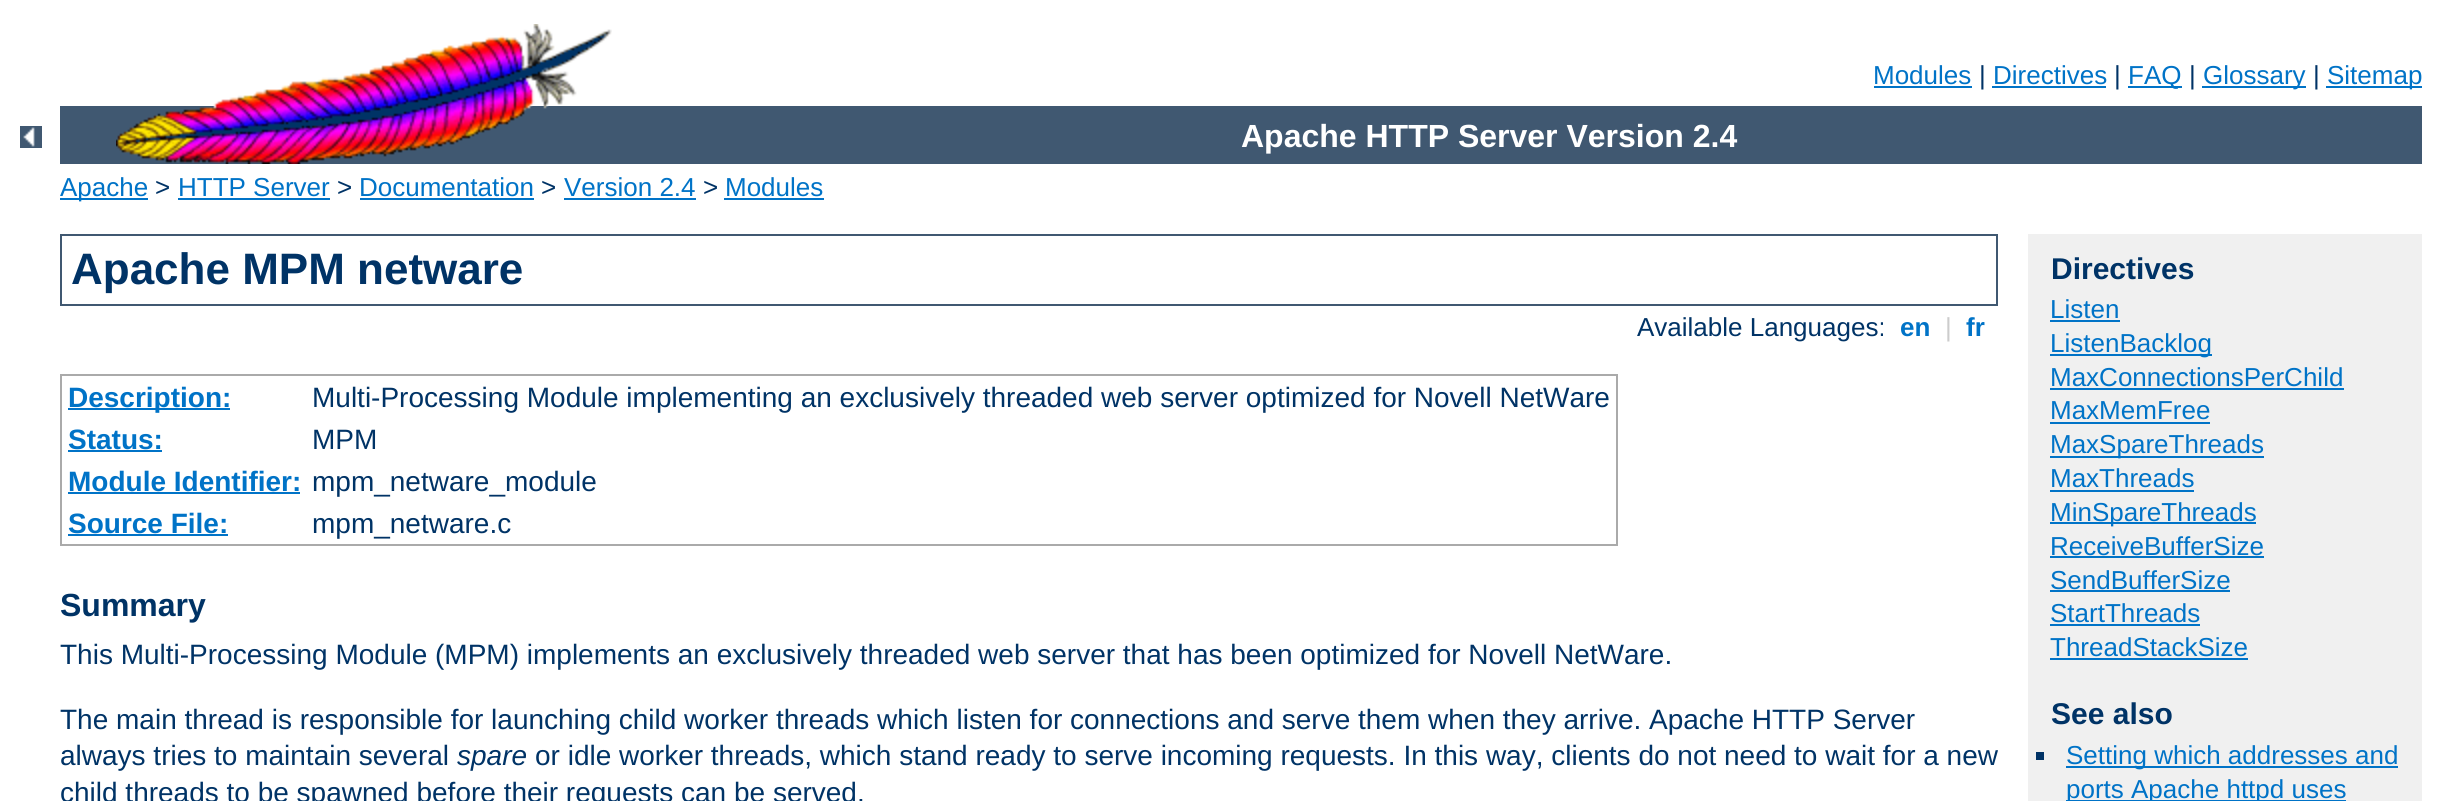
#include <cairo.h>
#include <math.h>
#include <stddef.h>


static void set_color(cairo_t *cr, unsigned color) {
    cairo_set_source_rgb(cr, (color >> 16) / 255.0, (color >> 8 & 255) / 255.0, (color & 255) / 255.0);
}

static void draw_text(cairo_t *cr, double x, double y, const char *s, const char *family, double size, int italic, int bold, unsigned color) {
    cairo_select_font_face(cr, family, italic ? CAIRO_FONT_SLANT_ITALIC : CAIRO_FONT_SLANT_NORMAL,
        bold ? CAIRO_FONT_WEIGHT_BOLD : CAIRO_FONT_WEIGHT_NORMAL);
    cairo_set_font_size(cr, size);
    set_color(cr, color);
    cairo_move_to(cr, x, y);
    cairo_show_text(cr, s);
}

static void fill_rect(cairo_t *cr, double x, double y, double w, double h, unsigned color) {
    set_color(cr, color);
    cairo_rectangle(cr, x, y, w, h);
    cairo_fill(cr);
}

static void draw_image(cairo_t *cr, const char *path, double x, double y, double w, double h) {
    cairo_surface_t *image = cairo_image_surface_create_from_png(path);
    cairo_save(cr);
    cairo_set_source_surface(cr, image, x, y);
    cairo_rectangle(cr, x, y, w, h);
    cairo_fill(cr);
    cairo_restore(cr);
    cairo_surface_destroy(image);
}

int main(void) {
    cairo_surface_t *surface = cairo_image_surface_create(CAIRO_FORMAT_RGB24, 2450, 801);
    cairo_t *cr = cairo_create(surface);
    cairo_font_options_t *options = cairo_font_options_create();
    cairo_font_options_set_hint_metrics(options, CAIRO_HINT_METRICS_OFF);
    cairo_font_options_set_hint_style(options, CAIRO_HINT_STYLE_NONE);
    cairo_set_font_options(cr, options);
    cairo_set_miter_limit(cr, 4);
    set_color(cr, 0xFFFFFF);
    cairo_paint(cr);
    draw_image(cr, "assets/img1.png", 20, 126, 22, 22);
    fill_rect(cr, 60, 106, 2362, 58, 0x405871);
    draw_image(cr, "assets/img2.png", 116, 24, 496, 140);
    draw_text(cr, 1873, 84, "Modules", "Liberation Sans", 26, 0, 0, 0x0073C7);
    fill_rect(cr, 1874, 86, 98, 2, 0x0073C7);
    draw_text(cr, 1979, 84, "|", "Liberation Sans", 26, 0, 0, 0x003366);
    draw_text(cr, 1993, 84, "Directives", "Liberation Sans", 26, 0, 0, 0x0073C7);
    fill_rect(cr, 1992, 86, 114, 2, 0x0073C7);
    draw_text(cr, 2114, 84, "|", "Liberation Sans", 26, 0, 0, 0x003366);
    fill_rect(cr, 2128, 86, 54, 2, 0x0073C7);
    draw_text(cr, 2128, 84, "FAQ", "Liberation Sans", 26, 0, 0, 0x0073C7);
    draw_text(cr, 2189, 84, "|", "Liberation Sans", 26, 0, 0, 0x003366);
    fill_rect(cr, 2202, 86, 104, 2, 0x0073C7);
    draw_text(cr, 2203, 84, "Glossary", "Liberation Sans", 26, 0, 0, 0x0073C7);
    draw_text(cr, 2313, 84, "|", "Liberation Sans", 26, 0, 0, 0x003366);
    fill_rect(cr, 2326, 86, 96, 2, 0x0073C7);
    draw_text(cr, 2327, 84, "Sitemap", "Liberation Sans", 26, 0, 0, 0x0073C7);
    draw_text(cr, 1241, 147, "Apache HTTP Server Version 2.4", "Liberation Sans", 32, 0, 1, 0xFFFFFF);
    fill_rect(cr, 60, 198, 88, 2, 0x0073C7);
    draw_text(cr, 60, 196, "Apache", "Liberation Sans", 26, 0, 0, 0x0073C7);
    draw_text(cr, 155, 196, ">", "Liberation Sans", 26, 0, 0, 0x003366);
    draw_text(cr, 178, 196, "HTTP Server", "Liberation Sans", 26, 0, 0, 0x0073C7);
    fill_rect(cr, 178, 198, 152, 2, 0x0073C7);
    draw_text(cr, 337, 196, ">", "Liberation Sans", 26, 0, 0, 0x003366);
    draw_text(cr, 359, 196, "Documentation", "Liberation Sans", 26, 0, 0, 0x0073C7);
    fill_rect(cr, 360, 198, 174, 2, 0x0073C7);
    draw_text(cr, 541, 196, ">", "Liberation Sans", 26, 0, 0, 0x003366);
    draw_text(cr, 564, 196, "Version 2.4", "Liberation Sans", 26, 0, 0, 0x0073C7);
    fill_rect(cr, 564, 198, 132, 2, 0x0073C7);
    draw_text(cr, 703, 196, ">", "Liberation Sans", 26, 0, 0, 0x003366);
    draw_text(cr, 725, 196, "Modules", "Liberation Sans", 26, 0, 0, 0x0073C7);
    fill_rect(cr, 724, 198, 100, 2, 0x0073C7);
    cairo_rectangle(cr, 61, 235, 1936, 70);
    set_color(cr, 0x405871);
    cairo_stroke(cr);
    draw_text(cr, 71, 284, "Apache MPM netware", "Liberation Sans", 44, 0, 1, 0x003366);
    draw_text(cr, 1637, 336, "Available Languages:", "Liberation Sans", 26, 0, 0, 0x003366);
    draw_text(cr, 1900, 336, "en", "Liberation Sans", 26, 0, 1, 0x0073C7);
    draw_text(cr, 1945, 336, "|", "Liberation Sans", 26, 0, 0, 0xCCCCCC);
    draw_text(cr, 1966, 336, "fr", "Liberation Sans", 26, 0, 1, 0x0073C7);
    fill_rect(cr, 60, 374, 1558, 2, 0xAAAAAA);
    fill_rect(cr, 1616, 374, 2, 172, 0xAAAAAA);
    fill_rect(cr, 60, 544, 1558, 2, 0xAAAAAA);
    fill_rect(cr, 60, 374, 2, 172, 0xAAAAAA);
    fill_rect(cr, 68, 408, 162, 2, 0x0073C7);
    draw_text(cr, 68, 407, "Description:", "Liberation Sans", 28, 0, 1, 0x0073C7);
    draw_text(cr, 312, 407, "Multi-Processing Module implementing an exclusively threaded web server optimized for Novell NetWare", "Liberation Sans", 28, 0, 0, 0x003366);
    draw_text(cr, 68, 449, "Status:", "Liberation Sans", 28, 0, 1, 0x0073C7);
    fill_rect(cr, 68, 450, 94, 2, 0x0073C7);
    draw_text(cr, 312, 449, "MPM", "Liberation Sans", 28, 0, 0, 0x003366);
    draw_text(cr, 68, 491, "Module Identifier:", "Liberation Sans", 28, 0, 1, 0x0073C7);
    fill_rect(cr, 68, 492, 232, 2, 0x0073C7);
    draw_text(cr, 312, 491, "mpm_netware_module", "Liberation Sans", 28, 0, 0, 0x003366);
    draw_text(cr, 68, 533, "Source File:", "Liberation Sans", 28, 0, 1, 0x0073C7);
    fill_rect(cr, 68, 534, 160, 2, 0x0073C7);
    draw_text(cr, 312, 533, "mpm_netware.c", "Liberation Sans", 28, 0, 0, 0x003366);
    draw_text(cr, 60, 616, "Summary", "Liberation Sans", 32, 0, 1, 0x003366);
    draw_text(cr, 60, 664, "This Multi-Processing Module (MPM) implements an exclusively threaded web server that has been optimized for Novell NetWare.", "Liberation Sans", 28, 0, 0, 0x003366);
    draw_text(cr, 60, 729, "The main thread is responsible for launching child worker threads which listen for connections and serve them when they arrive. Apache HTTP Server", "Liberation Sans", 28, 0, 0, 0x003366);
    draw_text(cr, 60, 765, "always tries to maintain several", "Liberation Sans", 28, 0, 0, 0x003366);
    draw_text(cr, 457, 765, "spare", "Liberation Sans", 28, 1, 0, 0x003366);
    draw_text(cr, 535, 765, "or idle worker threads, which stand ready to serve incoming requests. In this way, clients do not need to wait for a new", "Liberation Sans", 28, 0, 0, 0x003366);
    draw_text(cr, 60, 802, "child threads to be spawned before their requests can be served.", "Liberation Sans", 28, 0, 0, 0x003366);
    fill_rect(cr, 2028, 234, 394, 567, 0xF0F0F0);
    draw_text(cr, 2051, 279, "Directives", "Liberation Sans", 30, 0, 1, 0x003366);
    draw_text(cr, 2050, 318, "Listen", "Liberation Sans", 26, 0, 0, 0x0073C7);
    fill_rect(cr, 2050, 320, 70, 2, 0x0073C7);
    fill_rect(cr, 2050, 354, 162, 2, 0x0073C7);
    draw_text(cr, 2050, 352, "ListenBacklog", "Liberation Sans", 26, 0, 0, 0x0073C7);
    draw_text(cr, 2050, 386, "MaxConnectionsPerChild", "Liberation Sans", 26, 0, 0, 0x0073C7);
    fill_rect(cr, 2050, 388, 294, 2, 0x0073C7);
    draw_text(cr, 2050, 419, "MaxMemFree", "Liberation Sans", 26, 0, 0, 0x0073C7);
    fill_rect(cr, 2050, 422, 160, 2, 0x0073C7);
    fill_rect(cr, 2050, 456, 214, 2, 0x0073C7);
    draw_text(cr, 2050, 453, "MaxSpareThreads", "Liberation Sans", 26, 0, 0, 0x0073C7);
    draw_text(cr, 2050, 487, "MaxThreads", "Liberation Sans", 26, 0, 0, 0x0073C7);
    fill_rect(cr, 2050, 490, 144, 2, 0x0073C7);
    fill_rect(cr, 2050, 522, 206, 2, 0x0073C7);
    draw_text(cr, 2050, 521, "MinSpareThreads", "Liberation Sans", 26, 0, 0, 0x0073C7);
    draw_text(cr, 2050, 555, "ReceiveBufferSize", "Liberation Sans", 26, 0, 0, 0x0073C7);
    fill_rect(cr, 2050, 556, 214, 2, 0x0073C7);
    draw_text(cr, 2050, 589, "SendBufferSize", "Liberation Sans", 26, 0, 0, 0x0073C7);
    fill_rect(cr, 2050, 590, 180, 2, 0x0073C7);
    draw_text(cr, 2050, 622, "StartThreads", "Liberation Sans", 26, 0, 0, 0x0073C7);
    fill_rect(cr, 2050, 624, 150, 2, 0x0073C7);
    draw_text(cr, 2050, 656, "ThreadStackSize", "Liberation Sans", 26, 0, 0, 0x0073C7);
    fill_rect(cr, 2050, 658, 198, 2, 0x0073C7);
    draw_text(cr, 2051, 724, "See also", "Liberation Sans", 30, 0, 1, 0x003366);
    fill_rect(cr, 2036, 752, 8, 8, 0x003366);
    fill_rect(cr, 2066, 766, 332, 2, 0x0073C7);
    draw_text(cr, 2066, 764, "Setting which addresses and", "Liberation Sans", 26, 0, 0, 0x0073C7);
    fill_rect(cr, 2066, 800, 280, 1, 0x0073C7);
    draw_text(cr, 2066, 798, "ports Apache httpd uses", "Liberation Sans", 26, 0, 0, 0x0073C7);
    cairo_surface_write_to_png(surface, "output.png");
    cairo_font_options_destroy(options);
    cairo_destroy(cr);
    cairo_surface_destroy(surface);
    return 0;
}
